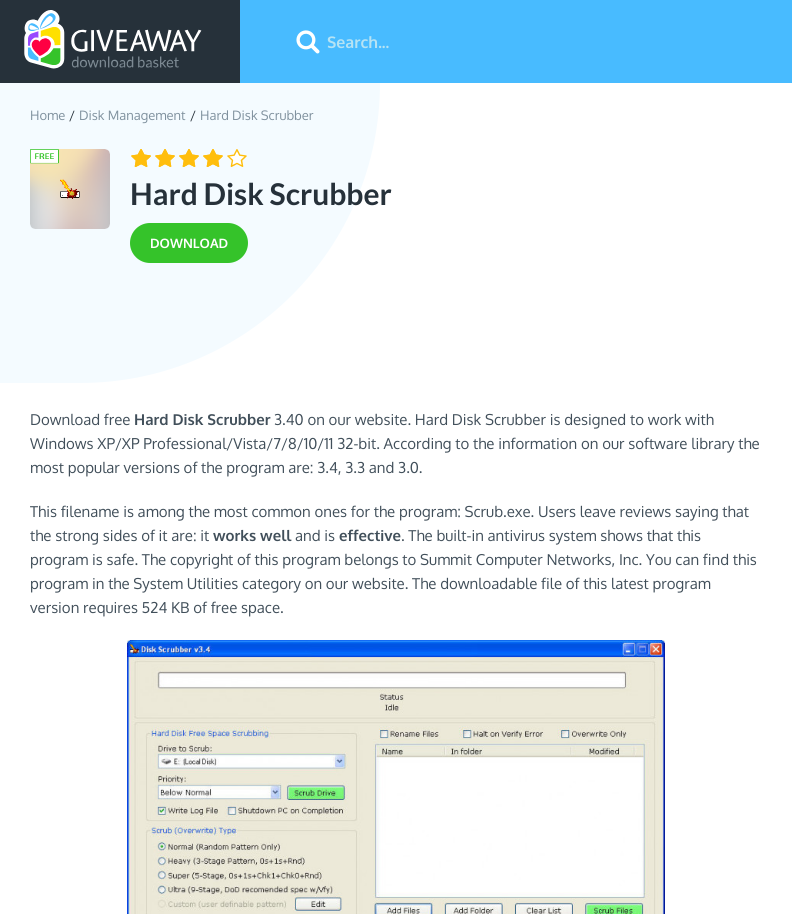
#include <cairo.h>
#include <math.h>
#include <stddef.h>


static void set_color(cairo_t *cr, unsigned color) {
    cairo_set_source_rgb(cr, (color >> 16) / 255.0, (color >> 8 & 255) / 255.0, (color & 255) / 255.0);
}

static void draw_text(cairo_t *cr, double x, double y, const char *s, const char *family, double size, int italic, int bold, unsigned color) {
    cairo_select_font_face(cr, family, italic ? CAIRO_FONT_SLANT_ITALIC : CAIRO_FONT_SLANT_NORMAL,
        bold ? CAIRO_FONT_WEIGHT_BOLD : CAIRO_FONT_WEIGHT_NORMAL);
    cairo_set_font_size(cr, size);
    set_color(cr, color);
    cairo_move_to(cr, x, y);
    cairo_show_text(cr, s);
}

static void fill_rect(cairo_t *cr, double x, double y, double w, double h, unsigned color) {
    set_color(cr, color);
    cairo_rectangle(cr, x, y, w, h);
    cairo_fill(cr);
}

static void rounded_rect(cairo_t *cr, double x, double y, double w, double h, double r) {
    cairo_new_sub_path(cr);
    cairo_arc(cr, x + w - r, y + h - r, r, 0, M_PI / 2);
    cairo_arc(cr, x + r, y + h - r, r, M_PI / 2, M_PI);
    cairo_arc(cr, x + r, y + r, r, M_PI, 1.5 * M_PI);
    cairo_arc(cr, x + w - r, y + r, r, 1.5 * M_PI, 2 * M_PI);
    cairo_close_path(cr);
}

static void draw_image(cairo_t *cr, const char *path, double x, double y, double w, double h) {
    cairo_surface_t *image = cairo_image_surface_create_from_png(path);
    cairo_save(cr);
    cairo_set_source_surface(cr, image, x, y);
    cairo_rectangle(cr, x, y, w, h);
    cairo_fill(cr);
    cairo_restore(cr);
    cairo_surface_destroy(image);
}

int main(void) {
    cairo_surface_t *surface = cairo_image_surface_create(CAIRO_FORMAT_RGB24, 792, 914);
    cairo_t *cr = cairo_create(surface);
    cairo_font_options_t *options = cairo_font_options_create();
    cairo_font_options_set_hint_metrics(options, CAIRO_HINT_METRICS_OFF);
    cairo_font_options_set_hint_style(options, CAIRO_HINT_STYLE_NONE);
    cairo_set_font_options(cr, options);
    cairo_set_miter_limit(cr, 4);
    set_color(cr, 0xFFFFFF);
    cairo_paint(cr);
    fill_rect(cr, 0, 0, 240, 83, 0x26313A);
    draw_image(cr, "assets/img1.png", 24, 10, 178, 59);
    fill_rect(cr, 240, 0, 552, 83, 0x48BBFF);
    draw_image(cr, "assets/img2.png", 296, 30, 24, 24);
    draw_text(cr, 327, 48, "Search...", "Oxygen", 16, 0, 1, 0xB6E3F4);
    set_color(cr, 0xF4FBFF);
    cairo_new_path(cr);
    cairo_move_to(cr, 0, 83);
    cairo_line_to(cr, 380, 83);
    cairo_curve_to(cr, 380, 248.5, 245.5, 383, 80, 383);
    cairo_line_to(cr, 0, 383);
    cairo_close_path(cr);
    cairo_fill(cr);
    draw_text(cr, 30, 120, "Home", "Oxygen", 13, 0, 0, 0x7F919E);
    draw_text(cr, 69, 120, "/", "Oxygen", 13, 0, 0, 0x26313A);
    draw_text(cr, 79, 120, "Disk Management", "Oxygen", 13, 0, 0, 0x7F919E);
    draw_text(cr, 190, 120, "/", "Oxygen", 13, 0, 0, 0x26313A);
    draw_text(cr, 200, 120, "Hard Disk Scrubber", "Oxygen", 13, 0, 0, 0x7F919E);
    draw_image(cr, "assets/img3.png", 30, 149, 80, 80);
    draw_image(cr, "assets/img4.png", 131, 149, 116, 18);
    draw_image(cr, "assets/img5.png", 131, 149, 92, 18);
    draw_text(cr, 130, 205, "Hard Disk Scrubber", "Lato", 30, 0, 1, 0x26313A);
    set_color(cr, 0x35C32A);
    rounded_rect(cr, 130, 223, 118, 40, 20);
    cairo_fill(cr);
    draw_text(cr, 150, 248, "DOWNLOAD", "Oxygen", 13, 0, 1, 0xFFFFFF);
    draw_text(cr, 30, 425, "Download free", "Oxygen", 15, 0, 0, 0x414F5A);
    draw_text(cr, 134, 425, "Hard Disk Scrubber", "Oxygen", 15, 0, 1, 0x414F5A);
    draw_text(cr, 274, 425, "3.40 on our website. Hard Disk Scrubber is designed to work with", "Oxygen", 15, 0, 0, 0x414F5A);
    draw_text(cr, 30, 449, "Windows XP/XP Professional/Vista/7/8/10/11 32-bit. According to the information on our software library the", "Oxygen", 15, 0, 0, 0x414F5A);
    draw_text(cr, 30, 473, "most popular versions of the program are: 3.4, 3.3 and 3.0.", "Oxygen", 15, 0, 0, 0x414F5A);
    draw_text(cr, 30, 517, "This filename is among the most common ones for the program: Scrub.exe. Users leave reviews saying that", "Oxygen", 15, 0, 0, 0x414F5A);
    draw_text(cr, 30, 541, "the strong sides of it are: it", "Oxygen", 15, 0, 0, 0x414F5A);
    draw_text(cr, 213, 541, "works well", "Oxygen", 15, 0, 1, 0x414F5A);
    draw_text(cr, 295, 541, "and is", "Oxygen", 15, 0, 0, 0x414F5A);
    draw_text(cr, 339, 541, "effective", "Oxygen", 15, 0, 1, 0x414F5A);
    draw_text(cr, 401, 541, ". The built-in antivirus system shows that this", "Oxygen", 15, 0, 0, 0x414F5A);
    draw_text(cr, 30, 565, "program is safe. The copyright of this program belongs to Summit Computer Networks, Inc. You can find this", "Oxygen", 15, 0, 0, 0x414F5A);
    draw_text(cr, 30, 589, "program in the System Utilities category on our website. The downloadable file of this latest program", "Oxygen", 15, 0, 0, 0x414F5A);
    draw_text(cr, 30, 613, "version requires 524 KB of free space.", "Oxygen", 15, 0, 0, 0x414F5A);
    draw_image(cr, "assets/img6.png", 127, 640, 538, 274);
    cairo_surface_write_to_png(surface, "output.png");
    cairo_font_options_destroy(options);
    cairo_destroy(cr);
    cairo_surface_destroy(surface);
    return 0;
}
